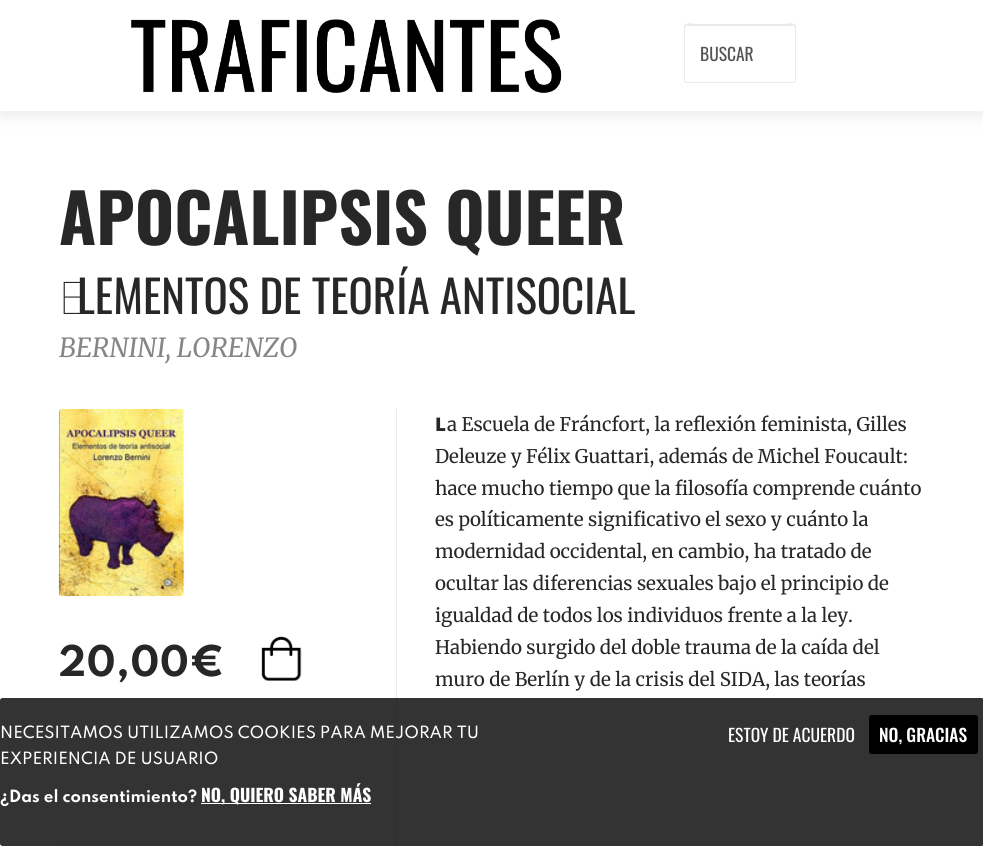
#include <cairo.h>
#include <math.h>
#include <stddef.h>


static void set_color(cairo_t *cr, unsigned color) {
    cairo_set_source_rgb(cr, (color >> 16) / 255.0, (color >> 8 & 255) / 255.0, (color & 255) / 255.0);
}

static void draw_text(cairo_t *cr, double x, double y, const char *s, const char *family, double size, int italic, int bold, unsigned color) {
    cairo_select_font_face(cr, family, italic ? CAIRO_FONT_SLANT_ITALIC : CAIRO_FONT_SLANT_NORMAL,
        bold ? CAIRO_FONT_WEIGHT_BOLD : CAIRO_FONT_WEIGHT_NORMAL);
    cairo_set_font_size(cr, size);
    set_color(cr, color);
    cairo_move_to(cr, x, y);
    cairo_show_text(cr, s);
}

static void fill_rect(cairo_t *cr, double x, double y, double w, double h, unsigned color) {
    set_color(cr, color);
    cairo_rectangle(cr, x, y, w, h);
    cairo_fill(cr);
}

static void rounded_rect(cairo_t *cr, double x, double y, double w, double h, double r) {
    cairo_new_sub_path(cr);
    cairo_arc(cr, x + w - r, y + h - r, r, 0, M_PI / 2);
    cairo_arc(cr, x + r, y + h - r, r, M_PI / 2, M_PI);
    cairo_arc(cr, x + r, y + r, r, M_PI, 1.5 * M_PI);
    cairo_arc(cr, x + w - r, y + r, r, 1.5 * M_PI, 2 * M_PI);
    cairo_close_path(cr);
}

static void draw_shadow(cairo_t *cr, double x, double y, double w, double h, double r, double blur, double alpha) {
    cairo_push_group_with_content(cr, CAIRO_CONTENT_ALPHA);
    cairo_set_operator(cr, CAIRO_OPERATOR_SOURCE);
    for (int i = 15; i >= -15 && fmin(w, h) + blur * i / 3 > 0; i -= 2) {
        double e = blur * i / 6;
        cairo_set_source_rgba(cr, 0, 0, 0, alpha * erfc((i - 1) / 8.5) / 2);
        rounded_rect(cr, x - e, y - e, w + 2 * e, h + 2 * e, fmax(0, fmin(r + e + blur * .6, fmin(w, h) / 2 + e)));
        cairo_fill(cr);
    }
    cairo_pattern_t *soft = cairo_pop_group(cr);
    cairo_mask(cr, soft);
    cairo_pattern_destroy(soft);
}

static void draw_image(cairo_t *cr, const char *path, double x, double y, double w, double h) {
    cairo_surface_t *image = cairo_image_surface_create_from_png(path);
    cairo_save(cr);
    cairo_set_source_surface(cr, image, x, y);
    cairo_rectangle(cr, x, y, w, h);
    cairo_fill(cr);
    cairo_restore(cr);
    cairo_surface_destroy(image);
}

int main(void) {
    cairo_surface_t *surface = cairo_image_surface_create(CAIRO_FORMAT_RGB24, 983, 846);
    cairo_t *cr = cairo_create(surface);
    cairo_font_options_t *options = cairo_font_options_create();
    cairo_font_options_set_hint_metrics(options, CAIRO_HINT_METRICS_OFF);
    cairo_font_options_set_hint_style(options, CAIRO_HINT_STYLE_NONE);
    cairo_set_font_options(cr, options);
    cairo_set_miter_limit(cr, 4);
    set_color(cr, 0xFFFFFF);
    cairo_paint(cr);
    set_color(cr, 0xEAEAEA);
    draw_shadow(cr, 0, 3, 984, 112, 0, 8, 1);
    fill_rect(cr, 0, 0, 983, 111, 0xFFFFFF);
    draw_image(cr, "assets/img1.png", 131, 19, 431, 74);
    set_color(cr, 0xECECEC);
    cairo_new_path(cr);
    cairo_move_to(cr, 686, 26);
    cairo_line_to(cr, 794, 26);
    cairo_line_to(cr, 795, 28);
    cairo_curve_to(cr, 795, 19, 786, 25, 776, 25);
    cairo_line_to(cr, 704, 25);
    cairo_curve_to(cr, 694, 25, 685, 19, 685, 28);
    cairo_close_path(cr);
    cairo_fill(cr);
    rounded_rect(cr, 684.5, 24.5, 111, 58, 2);
    set_color(cr, 0xEAEAEA);
    cairo_set_line_width(cr, 1);
    cairo_stroke(cr);
    draw_text(cr, 700, 61, "BUSCAR", "Oswald", 17.5, 0, 0, 0x545454);
    draw_text(cr, 59, 245, "APOCALIPSIS QUEER", "Oswald", 67.5, 0, 1, 0x272727);
    draw_text(cr, 59, 314, "E", "Noto Sans Thin", 45, 0, 0, 0x272727);
    draw_text(cr, 77, 314, "LEMENTOS DE TEORÍA ANTISOCIAL", "Oswald", 45, 0, 0, 0x272727);
    draw_text(cr, 59, 357, "BERNINI, LORENZO", "Merriweather", 26.25, 1, 0, 0x868686);
    draw_image(cr, "assets/img2.png", 58, 408, 126, 189);
    fill_rect(cr, 396, 409, 1, 437, 0xEAEAEA);
    draw_text(cr, 447, 431, "a Escuela de Fráncfort, la reflexión feminista, Gilles", "Merriweather", 18.75, 0, 0, 0x272727);
    draw_text(cr, 435, 463, "Deleuze y Félix Guattari, además de Michel Foucault:", "Merriweather", 18.75, 0, 0, 0x272727);
    draw_text(cr, 435, 495, "hace mucho tiempo que la filosofía comprende cuánto", "Merriweather", 18.75, 0, 0, 0x272727);
    draw_text(cr, 435, 526, "es políticamente significativo el sexo y cuánto la", "Merriweather", 18.75, 0, 0, 0x272727);
    draw_text(cr, 435, 558, "modernidad occidental, en cambio, ha tratado de", "Merriweather", 18.75, 0, 0, 0x272727);
    draw_text(cr, 435, 590, "ocultar las diferencias sexuales bajo el principio de", "Merriweather", 18.75, 0, 0, 0x272727);
    draw_text(cr, 435, 622, "igualdad de todos los individuos frente a la ley.", "Merriweather", 18.75, 0, 0, 0x272727);
    draw_text(cr, 435, 654, "Habiendo surgido del doble trauma de la caída del", "Merriweather", 18.75, 0, 0, 0x272727);
    draw_text(cr, 435, 686, "muro de Berlín y de la crisis del SIDA, las teorías", "Merriweather", 18.75, 0, 0, 0x272727);
    draw_text(cr, 435, 431, "L", "Noto Sans Black", 18.75, 0, 0, 0x272727);
    draw_text(cr, 59, 676, "20,00€", "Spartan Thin", 37.5, 0, 1, 0x272727);
    draw_image(cr, "assets/img3.png", 261, 636, 41, 45);
    fill_rect(cr, 59, 843, 300, 1, 0xEAEAEA);
    cairo_set_source_rgba(cr, 0, 0, 0, 0.8);
    rounded_rect(cr, 0, 698, 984, 148, 2.5);
    cairo_fill(cr);
    draw_text(cr, 0, 738, "NECESITAMOS UTILIZAMOS COOKIES PARA MEJORAR TU", "Spartan Thin Medium", 15, 0, 0, 0xFFFFFF);
    draw_text(cr, 0, 764, "EXPERIENCIA DE USUARIO", "Spartan Thin Medium", 15, 0, 0, 0xFFFFFF);
    draw_text(cr, 0, 802, "¿Das el consentimiento?", "Spartan Thin", 15, 0, 1, 0xFFFFFF);
    fill_rect(cr, 201, 803, 170, 1, 0xFFFFFF);
    draw_text(cr, 201, 802, "NO, QUIERO SABER MÁS", "Oswald", 17.5, 0, 1, 0xFFFFFF);
    draw_text(cr, 728, 742, "ESTOY DE ACUERDO", "Oswald", 17.5, 0, 0, 0xFFFFFF);
    set_color(cr, 0x000000);
    rounded_rect(cr, 869, 715, 109, 39, 2.5);
    cairo_fill(cr);
    draw_text(cr, 879, 742, "NO, GRACIAS", "Oswald Medium", 17.5, 0, 0, 0xFFFFFF);
    cairo_surface_write_to_png(surface, "output.png");
    cairo_font_options_destroy(options);
    cairo_destroy(cr);
    cairo_surface_destroy(surface);
    return 0;
}
